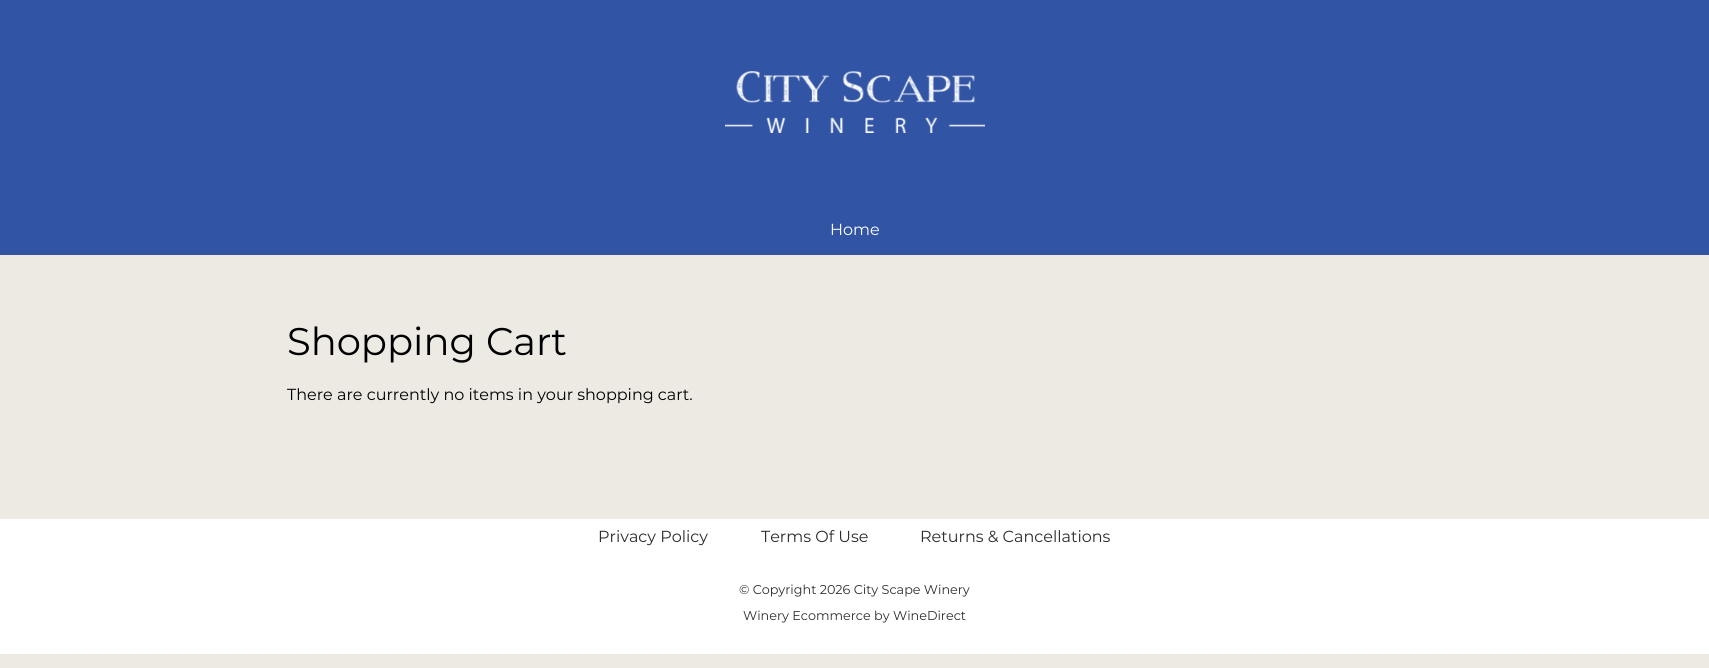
#include <cairo.h>
#include <math.h>
#include <stddef.h>


static void set_color(cairo_t *cr, unsigned color) {
    cairo_set_source_rgb(cr, (color >> 16) / 255.0, (color >> 8 & 255) / 255.0, (color & 255) / 255.0);
}

static void draw_text(cairo_t *cr, double x, double y, const char *s, const char *family, double size, int italic, int bold, unsigned color) {
    cairo_select_font_face(cr, family, italic ? CAIRO_FONT_SLANT_ITALIC : CAIRO_FONT_SLANT_NORMAL,
        bold ? CAIRO_FONT_WEIGHT_BOLD : CAIRO_FONT_WEIGHT_NORMAL);
    cairo_set_font_size(cr, size);
    set_color(cr, color);
    cairo_move_to(cr, x, y);
    cairo_show_text(cr, s);
}

static void fill_rect(cairo_t *cr, double x, double y, double w, double h, unsigned color) {
    set_color(cr, color);
    cairo_rectangle(cr, x, y, w, h);
    cairo_fill(cr);
}

static void draw_image(cairo_t *cr, const char *path, double x, double y, double w, double h) {
    cairo_surface_t *image = cairo_image_surface_create_from_png(path);
    cairo_save(cr);
    cairo_set_source_surface(cr, image, x, y);
    cairo_rectangle(cr, x, y, w, h);
    cairo_fill(cr);
    cairo_restore(cr);
    cairo_surface_destroy(image);
}

int main(void) {
    cairo_surface_t *surface = cairo_image_surface_create(CAIRO_FORMAT_RGB24, 1709, 668);
    cairo_t *cr = cairo_create(surface);
    cairo_font_options_t *options = cairo_font_options_create();
    cairo_font_options_set_hint_metrics(options, CAIRO_HINT_METRICS_OFF);
    cairo_font_options_set_hint_style(options, CAIRO_HINT_STYLE_NONE);
    cairo_set_font_options(cr, options);
    cairo_set_miter_limit(cr, 4);
    set_color(cr, 0xEDEAE3);
    cairo_paint(cr);
    fill_rect(cr, 0, 0, 1709, 255, 0x3154A5);
    draw_image(cr, "assets/img1.png", 725, 71, 260, 62);
    draw_text(cr, 830, 235, "Home", "Montserrat Thin", 16, 0, 0, 0xFFFFFF);
    draw_text(cr, 287, 355, "Shopping Cart", "Montserrat Thin", 38.5, 0, 0, 0x000000);
    draw_text(cr, 287, 400, "There are currently no items in your shopping cart.", "Montserrat Thin", 16, 0, 0, 0x000000);
    fill_rect(cr, 0, 519, 1709, 135, 0xFFFFFF);
    draw_text(cr, 598, 542, "Privacy Policy", "Montserrat Thin", 16, 0, 0, 0x2D2D2D);
    draw_text(cr, 761, 542, "Terms Of Use", "Montserrat Thin", 16, 0, 0, 0x2D2D2D);
    draw_text(cr, 920, 542, "Returns & Cancellations", "Montserrat Thin", 16, 0, 0, 0x2D2D2D);
    draw_text(cr, 739, 594, "© Copyright 2026 City Scape Winery", "Montserrat Thin", 12.75, 0, 0, 0x2D2D2D);
    draw_text(cr, 743, 620, "Winery Ecommerce by WineDirect", "Montserrat Thin", 12.75, 0, 0, 0x2D2D2D);
    cairo_surface_write_to_png(surface, "output.png");
    cairo_font_options_destroy(options);
    cairo_destroy(cr);
    cairo_surface_destroy(surface);
    return 0;
}
